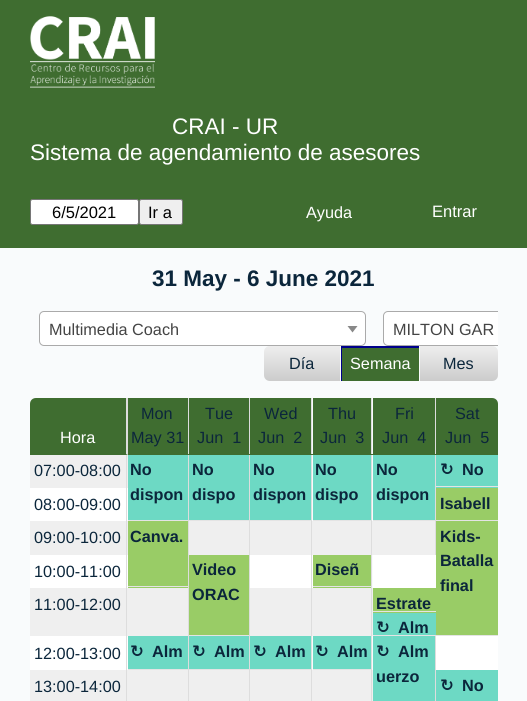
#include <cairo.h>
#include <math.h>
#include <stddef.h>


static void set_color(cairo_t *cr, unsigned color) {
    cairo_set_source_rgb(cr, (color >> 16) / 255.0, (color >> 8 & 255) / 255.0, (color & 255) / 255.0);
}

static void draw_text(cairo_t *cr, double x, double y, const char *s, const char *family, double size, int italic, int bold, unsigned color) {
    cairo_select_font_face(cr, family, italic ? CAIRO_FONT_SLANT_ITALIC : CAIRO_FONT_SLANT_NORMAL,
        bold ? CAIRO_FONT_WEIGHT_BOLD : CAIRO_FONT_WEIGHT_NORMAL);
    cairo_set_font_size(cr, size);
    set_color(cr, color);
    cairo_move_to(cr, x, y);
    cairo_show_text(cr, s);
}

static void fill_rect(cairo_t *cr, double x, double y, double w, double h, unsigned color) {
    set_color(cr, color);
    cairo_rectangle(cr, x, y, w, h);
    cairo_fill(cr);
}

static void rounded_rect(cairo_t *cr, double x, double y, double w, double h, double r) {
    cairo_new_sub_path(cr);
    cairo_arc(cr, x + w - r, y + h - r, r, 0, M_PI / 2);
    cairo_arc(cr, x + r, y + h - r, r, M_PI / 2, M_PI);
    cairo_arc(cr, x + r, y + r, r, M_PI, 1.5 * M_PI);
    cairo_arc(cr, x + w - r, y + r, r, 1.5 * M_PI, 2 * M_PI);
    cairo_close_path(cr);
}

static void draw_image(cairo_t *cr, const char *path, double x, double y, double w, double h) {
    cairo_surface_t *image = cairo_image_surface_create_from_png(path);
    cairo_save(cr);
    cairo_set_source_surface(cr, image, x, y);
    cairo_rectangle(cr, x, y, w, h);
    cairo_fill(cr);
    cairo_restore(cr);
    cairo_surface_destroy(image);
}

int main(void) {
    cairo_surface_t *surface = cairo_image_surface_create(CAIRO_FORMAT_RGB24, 527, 701);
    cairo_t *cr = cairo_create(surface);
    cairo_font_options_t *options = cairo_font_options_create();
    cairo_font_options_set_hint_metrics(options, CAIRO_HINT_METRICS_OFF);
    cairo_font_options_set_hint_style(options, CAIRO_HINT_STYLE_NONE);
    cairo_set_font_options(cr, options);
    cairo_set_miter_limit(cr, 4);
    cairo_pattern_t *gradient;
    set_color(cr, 0xF9FBFC);
    cairo_paint(cr);
    fill_rect(cr, 0, 0, 527, 248, 0x3F6D30);
    draw_image(cr, "assets/img1.png", 30, 16, 125, 72);
    draw_text(cr, 172, 134, "CRAI - UR", "Liberation Sans", 22.5, 0, 0, 0xFFFFFF);
    draw_text(cr, 30, 160, "Sistema de agendamiento de asesores", "Liberation Sans", 22.5, 0, 0, 0xFFFFFF);
    rounded_rect(cr, 30.5, 199.5, 108, 25, 2);
    cairo_fill_preserve(cr);
    set_color(cr, 0x767676);
    cairo_set_line_width(cr, 1);
    cairo_stroke(cr);
    draw_text(cr, 52, 218, "6/5/2021", "Liberation Sans", 16.5, 0, 0, 0x000000);
    set_color(cr, 0xEFEFEF);
    rounded_rect(cr, 139.5, 199.5, 43, 25, 2);
    cairo_fill_preserve(cr);
    set_color(cr, 0x767676);
    cairo_stroke(cr);
    draw_text(cr, 148, 218, "Ir a", "Liberation Sans", 16.5, 0, 0, 0x000000);
    draw_text(cr, 306, 218, "Ayuda", "Liberation Sans", 16.25, 0, 0, 0xFFFFFF);
    draw_text(cr, 432, 217, "Entrar", "Liberation Sans", 16.5, 0, 0, 0xFFFFFF);
    draw_text(cr, 152, 286, "31 May - 6 June 2021", "Liberation Sans", 22.5, 0, 1, 0x0B263B);
    set_color(cr, 0xFFFFFF);
    rounded_rect(cr, 39.5, 311.5, 326, 34, 4.5);
    cairo_fill_preserve(cr);
    set_color(cr, 0xAAAAAA);
    cairo_stroke(cr);
    draw_text(cr, 49, 335, "Multimedia Coach", "Liberation Sans", 16.25, 0, 0, 0x444444);
    set_color(cr, 0x888888);
    cairo_new_path(cr);
    cairo_move_to(cr, 347.5, 326);
    cairo_line_to(cr, 357.5, 326);
    cairo_line_to(cr, 352.5, 332.5);
    cairo_close_path(cr);
    cairo_fill(cr);
    set_color(cr, 0xFFFFFF);
    cairo_new_path(cr);
    cairo_move_to(cr, 388, 311);
    cairo_line_to(cr, 498, 311);
    cairo_line_to(cr, 498, 346);
    cairo_line_to(cr, 388, 346);
    cairo_curve_to(cr, 385, 346, 383, 344, 383, 341);
    cairo_line_to(cr, 383, 316);
    cairo_curve_to(cr, 383, 313, 385, 311, 388, 311);
    cairo_close_path(cr);
    cairo_fill(cr);
    cairo_save(cr);
    cairo_rectangle(cr, 30, 248, 468, 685);
    cairo_clip(cr);
    rounded_rect(cr, 383.5, 311.5, 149, 34, 4.5);
    set_color(cr, 0xAAAAAA);
    cairo_stroke(cr);
    cairo_restore(cr);
    draw_text(cr, 393, 335, "MILTON GAR", "Liberation Sans", 16.25, 0, 0, 0x444444);
    gradient = cairo_pattern_create_linear(302, 346, 302, 381);
    cairo_pattern_add_color_stop_rgba(gradient, 0, 0.933, 0.933, 0.933, 1);
    cairo_pattern_add_color_stop_rgba(gradient, 1, 0.8, 0.8, 0.8, 1);
    cairo_set_source(cr, gradient);
    cairo_pattern_destroy(gradient);
    cairo_new_path(cr);
    cairo_move_to(cr, 270, 346);
    cairo_line_to(cr, 341, 346);
    cairo_line_to(cr, 341, 381);
    cairo_line_to(cr, 270, 381);
    cairo_curve_to(cr, 266.5, 381, 264, 378.5, 264, 375);
    cairo_line_to(cr, 264, 352);
    cairo_curve_to(cr, 264, 348.5, 266.5, 346, 270, 346);
    cairo_close_path(cr);
    cairo_fill(cr);
    fill_rect(cr, 340, 346, 1, 35, 0xF9FBFC);
    draw_text(cr, 289, 369, "Día", "Liberation Sans", 16.25, 0, 0, 0x0B263B);
    fill_rect(cr, 342, 348, 77, 33, 0x3F6D30);
    cairo_save(cr);
    cairo_rectangle(cr, 341, 346, 78, 35);
    cairo_clip(cr);
    set_color(cr, 0x00008B);
    cairo_set_fill_rule(cr, CAIRO_FILL_RULE_EVEN_ODD);
    cairo_new_path(cr);
    cairo_move_to(cr, 218, 222);
    cairo_line_to(cr, 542, 222);
    cairo_line_to(cr, 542, 505);
    cairo_line_to(cr, 218, 505);
    cairo_close_path(cr);
    cairo_move_to(cr, 342, 348);
    cairo_line_to(cr, 420, 348);
    cairo_line_to(cr, 420, 382);
    cairo_line_to(cr, 342, 382);
    cairo_close_path(cr);
    cairo_fill(cr);
    cairo_restore(cr);
    draw_text(cr, 350, 369, "Semana", "Liberation Sans", 16.25, 0, 0, 0xFFFFFF);
    gradient = cairo_pattern_create_linear(459, 346, 459, 381);
    cairo_pattern_add_color_stop_rgba(gradient, 0, 0.933, 0.933, 0.933, 1);
    cairo_pattern_add_color_stop_rgba(gradient, 1, 0.8, 0.8, 0.8, 1);
    cairo_set_source(cr, gradient);
    cairo_pattern_destroy(gradient);
    cairo_new_path(cr);
    cairo_move_to(cr, 420, 346);
    cairo_line_to(cr, 492, 346);
    cairo_curve_to(cr, 495.5, 346, 498, 348.5, 498, 352);
    cairo_line_to(cr, 498, 375);
    cairo_curve_to(cr, 498, 378.5, 495.5, 381, 492, 381);
    cairo_line_to(cr, 420, 381);
    cairo_close_path(cr);
    cairo_fill(cr);
    draw_text(cr, 443, 369, "Mes", "Liberation Sans", 16.25, 0, 0, 0x0B263B);
    set_color(cr, 0x3F6D30);
    cairo_new_path(cr);
    cairo_move_to(cr, 36, 398);
    cairo_line_to(cr, 126, 398);
    cairo_line_to(cr, 126, 454);
    cairo_line_to(cr, 30, 454);
    cairo_line_to(cr, 30, 404);
    cairo_curve_to(cr, 30, 400.5, 32.5, 398, 36, 398);
    cairo_close_path(cr);
    cairo_fill(cr);
    set_color(cr, 0xDDDDDD);
    cairo_new_path(cr);
    cairo_move_to(cr, 128, 398);
    cairo_line_to(cr, 128, 455);
    cairo_line_to(cr, 126, 454);
    cairo_line_to(cr, 126, 398);
    cairo_close_path(cr);
    cairo_fill(cr);
    set_color(cr, 0x3F6D30);
    cairo_new_path(cr);
    cairo_move_to(cr, 128, 455);
    cairo_line_to(cr, 126, 454);
    cairo_line_to(cr, 30, 454);
    cairo_line_to(cr, 30, 455);
    cairo_close_path(cr);
    cairo_fill(cr);
    draw_text(cr, 60, 443, "Hora", "Liberation Sans", 16.25, 0, 0, 0xFFFFFF);
    fill_rect(cr, 128, 398, 60, 56, 0x3F6D30);
    fill_rect(cr, 188, 398, 1, 303, 0xDDDDDD);
    fill_rect(cr, 249, 398, 1, 303, 0xDDDDDD);
    fill_rect(cr, 311, 398, 1, 123, 0xDDDDDD);
    fill_rect(cr, 371, 398, 1, 123, 0xDDDDDD);
    fill_rect(cr, 435, 398, 1, 157, 0xDDDDDD);
    fill_rect(cr, 128, 454, 370, 1, 0x3F6D30);
    draw_text(cr, 141, 419, "Mon", "Liberation Sans", 16.25, 0, 0, 0x0B263B);
    draw_text(cr, 131, 443, "May 31", "Liberation Sans", 16.25, 0, 0, 0x0B263B);
    fill_rect(cr, 189, 398, 60, 56, 0x3F6D30);
    draw_text(cr, 205, 419, "Tue", "Liberation Sans", 16.25, 0, 0, 0x0B263B);
    draw_text(cr, 197, 443, "Jun  1", "Liberation Sans", 16.25, 0, 0, 0x0B263B);
    fill_rect(cr, 250, 398, 61, 56, 0x3F6D30);
    draw_text(cr, 264, 419, "Wed", "Liberation Sans", 16.25, 0, 0, 0x0B263B);
    draw_text(cr, 258, 443, "Jun  2", "Liberation Sans", 16.25, 0, 0, 0x0B263B);
    fill_rect(cr, 313, 398, 58, 56, 0x3F6D30);
    draw_text(cr, 328, 419, "Thu", "Liberation Sans", 16.25, 0, 0, 0x0B263B);
    draw_text(cr, 320, 443, "Jun  3", "Liberation Sans", 16.25, 0, 0, 0x0B263B);
    fill_rect(cr, 373, 398, 62, 56, 0x3F6D30);
    draw_text(cr, 395, 419, "Fri", "Liberation Sans", 16.25, 0, 0, 0x0B263B);
    draw_text(cr, 382, 443, "Jun  4", "Liberation Sans", 16.25, 0, 0, 0x0B263B);
    set_color(cr, 0x3F6D30);
    cairo_new_path(cr);
    cairo_move_to(cr, 436, 398);
    cairo_line_to(cr, 492, 398);
    cairo_curve_to(cr, 495.5, 398, 498, 400.5, 498, 404);
    cairo_line_to(cr, 498, 454);
    cairo_line_to(cr, 436, 454);
    cairo_close_path(cr);
    cairo_fill(cr);
    draw_text(cr, 455, 419, "Sat", "Liberation Sans", 16.25, 0, 0, 0x0B263B);
    draw_text(cr, 445, 443, "Jun  5", "Liberation Sans", 16.25, 0, 0, 0x0B263B);
    fill_rect(cr, 30, 455, 98, 33, 0xEFEFEF);
    fill_rect(cr, 126, 455, 1, 33, 0xDDDDDD);
    draw_text(cr, 34, 476, "07:00-08:00", "Liberation Sans", 16.25, 0, 0, 0x0B263B);
    fill_rect(cr, 128, 455, 60, 65, 0x6DD9C4);
    fill_rect(cr, 128, 520, 60, 1, 0xE4E4E4);
    draw_text(cr, 130, 475, "No", "Liberation Sans", 16.25, 0, 1, 0x0B263B);
    draw_text(cr, 130, 500, "dispon", "Liberation Sans", 16.25, 0, 1, 0x0B263B);
    fill_rect(cr, 189, 455, 60, 65, 0x6DD9C4);
    fill_rect(cr, 189, 520, 60, 1, 0xE4E4E4);
    draw_text(cr, 192, 475, "No", "Liberation Sans", 16.25, 0, 1, 0x0B263B);
    draw_text(cr, 192, 500, "dispo", "Liberation Sans", 16.25, 0, 1, 0x0B263B);
    fill_rect(cr, 250, 455, 61, 65, 0x6DD9C4);
    fill_rect(cr, 250, 520, 61, 1, 0xE4E4E4);
    draw_text(cr, 253, 475, "No", "Liberation Sans", 16.25, 0, 1, 0x0B263B);
    draw_text(cr, 253, 500, "dispon", "Liberation Sans", 16.25, 0, 1, 0x0B263B);
    fill_rect(cr, 313, 455, 58, 65, 0x6DD9C4);
    fill_rect(cr, 313, 520, 58, 1, 0xE4E4E4);
    draw_text(cr, 315, 475, "No", "Liberation Sans", 16.25, 0, 1, 0x0B263B);
    draw_text(cr, 315, 500, "dispo", "Liberation Sans", 16.25, 0, 1, 0x0B263B);
    fill_rect(cr, 373, 455, 62, 65, 0x6DD9C4);
    fill_rect(cr, 373, 520, 62, 1, 0xE4E4E4);
    draw_text(cr, 376, 475, "No", "Liberation Sans", 16.25, 0, 1, 0x0B263B);
    draw_text(cr, 376, 500, "dispon", "Liberation Sans", 16.25, 0, 1, 0x0B263B);
    fill_rect(cr, 436, 455, 62, 33, 0x6DD9C4);
    fill_rect(cr, 436, 486, 62, 1, 0xE4E4E4);
    draw_text(cr, 440, 475, "↻", "DejaVu Sans", 16.25, 0, 1, 0x0B263B);
    draw_text(cr, 462, 475, "No", "Liberation Sans", 16.25, 0, 1, 0x0B263B);
    fill_rect(cr, 30, 488, 98, 33, 0xFFFFFF);
    fill_rect(cr, 126, 488, 1, 33, 0xDDDDDD);
    draw_text(cr, 34, 510, "08:00-09:00", "Liberation Sans", 16.25, 0, 0, 0x0B263B);
    fill_rect(cr, 436, 488, 62, 32, 0x99CC66);
    fill_rect(cr, 436, 520, 62, 1, 0xE4E4E4);
    draw_text(cr, 440, 509, "Isabell", "Liberation Sans", 16.25, 0, 1, 0x0B263B);
    fill_rect(cr, 189, 521, 60, 34, 0xEFEFEF);
    fill_rect(cr, 250, 521, 185, 34, 0xEFEFEF);
    fill_rect(cr, 311, 521, 1, 34, 0xDDDDDD);
    fill_rect(cr, 30, 521, 98, 34, 0xEFEFEF);
    fill_rect(cr, 126, 521, 1, 34, 0xDDDDDD);
    draw_text(cr, 34, 543, "09:00-10:00", "Liberation Sans", 16.25, 0, 0, 0x0B263B);
    fill_rect(cr, 128, 521, 60, 67, 0x99CC66);
    fill_rect(cr, 128, 586, 60, 1, 0xE4E4E4);
    draw_text(cr, 130, 542, "Canva.", "Liberation Sans", 16.25, 0, 1, 0x0B263B);
    fill_rect(cr, 371, 521, 1, 67, 0xDDDDDD);
    fill_rect(cr, 436, 521, 62, 114, 0x99CC66);
    fill_rect(cr, 373, 635, 125, 1, 0xE4E4E4);
    draw_text(cr, 440, 542, "Kids-", "Liberation Sans", 16.25, 0, 1, 0x0B263B);
    draw_text(cr, 440, 566, "Batalla", "Liberation Sans", 16.25, 0, 1, 0x0B263B);
    draw_text(cr, 440, 591, "final", "Liberation Sans", 16.25, 0, 1, 0x0B263B);
    fill_rect(cr, 30, 555, 98, 33, 0xFFFFFF);
    fill_rect(cr, 30, 588, 158, 48, 0xEFEFEF);
    fill_rect(cr, 126, 555, 1, 81, 0xDDDDDD);
    draw_text(cr, 34, 577, "10:00-11:00", "Liberation Sans", 16.25, 0, 0, 0x0B263B);
    fill_rect(cr, 189, 555, 60, 80, 0x99CC66);
    fill_rect(cr, 189, 635, 60, 1, 0xE4E4E4);
    draw_text(cr, 192, 575, "Video", "Liberation Sans", 16.25, 0, 1, 0x0B263B);
    draw_text(cr, 192, 600, "ORAC", "Liberation Sans", 16.25, 0, 1, 0x0B263B);
    fill_rect(cr, 250, 555, 63, 33, 0xFFFFFF);
    fill_rect(cr, 311, 555, 1, 33, 0xDDDDDD);
    fill_rect(cr, 313, 555, 58, 33, 0x99CC66);
    fill_rect(cr, 313, 586, 58, 1, 0xE4E4E4);
    draw_text(cr, 315, 575, "Diseñ", "Liberation Sans", 16.25, 0, 1, 0x0B263B);
    fill_rect(cr, 373, 555, 63, 33, 0xFFFFFF);
    fill_rect(cr, 250, 588, 123, 48, 0xEFEFEF);
    fill_rect(cr, 311, 588, 1, 82, 0xDDDDDD);
    draw_text(cr, 34, 610, "11:00-12:00", "Liberation Sans", 16.25, 0, 0, 0x0B263B);
    fill_rect(cr, 371, 588, 1, 82, 0xDDDDDD);
    fill_rect(cr, 373, 588, 63, 25, 0x99CC66);
    fill_rect(cr, 373, 611, 63, 1, 0xE4E4E4);
    draw_text(cr, 376, 609, "Estrate", "Liberation Sans", 16.25, 0, 1, 0x0B263B);
    fill_rect(cr, 373, 613, 63, 22, 0x6DD9C4);
    draw_text(cr, 376, 633, "↻", "DejaVu Sans", 16.25, 0, 1, 0x0B263B);
    draw_text(cr, 398, 633, "Alm", "Liberation Sans", 16.25, 0, 1, 0x0B263B);
    fill_rect(cr, 30, 636, 98, 34, 0xFFFFFF);
    fill_rect(cr, 30, 670, 158, 31, 0xEFEFEF);
    fill_rect(cr, 126, 636, 1, 65, 0xDDDDDD);
    draw_text(cr, 34, 659, "12:00-13:00", "Liberation Sans", 16.25, 0, 0, 0x0B263B);
    fill_rect(cr, 128, 636, 60, 33, 0x6DD9C4);
    fill_rect(cr, 128, 669, 60, 1, 0xE4E4E4);
    draw_text(cr, 130, 657, "↻", "DejaVu Sans", 16.25, 0, 1, 0x0B263B);
    draw_text(cr, 152, 657, "Alm", "Liberation Sans", 16.25, 0, 1, 0x0B263B);
    fill_rect(cr, 189, 636, 60, 33, 0x6DD9C4);
    fill_rect(cr, 189, 669, 60, 1, 0xE4E4E4);
    draw_text(cr, 192, 657, "↻", "DejaVu Sans", 16.25, 0, 1, 0x0B263B);
    draw_text(cr, 214, 657, "Alm", "Liberation Sans", 16.25, 0, 1, 0x0B263B);
    fill_rect(cr, 250, 636, 61, 33, 0x6DD9C4);
    fill_rect(cr, 250, 669, 61, 1, 0xE4E4E4);
    draw_text(cr, 253, 657, "↻", "DejaVu Sans", 16.25, 0, 1, 0x0B263B);
    draw_text(cr, 275, 657, "Alm", "Liberation Sans", 16.25, 0, 1, 0x0B263B);
    fill_rect(cr, 313, 636, 58, 33, 0x6DD9C4);
    fill_rect(cr, 313, 669, 58, 1, 0xE4E4E4);
    draw_text(cr, 315, 657, "↻", "DejaVu Sans", 16.25, 0, 1, 0x0B263B);
    draw_text(cr, 337, 657, "Alm", "Liberation Sans", 16.25, 0, 1, 0x0B263B);
    fill_rect(cr, 435, 636, 1, 65, 0xDDDDDD);
    fill_rect(cr, 373, 636, 62, 65, 0x6DD9C4);
    draw_text(cr, 376, 657, "↻", "DejaVu Sans", 16.25, 0, 1, 0x0B263B);
    draw_text(cr, 398, 657, "Alm", "Liberation Sans", 16.25, 0, 1, 0x0B263B);
    draw_text(cr, 376, 682, "uerzo", "Liberation Sans", 16.25, 0, 1, 0x0B263B);
    fill_rect(cr, 436, 636, 62, 34, 0xFFFFFF);
    fill_rect(cr, 189, 670, 60, 31, 0xEFEFEF);
    fill_rect(cr, 250, 670, 123, 31, 0xEFEFEF);
    fill_rect(cr, 311, 670, 1, 31, 0xDDDDDD);
    draw_text(cr, 34, 692, "13:00-14:00", "Liberation Sans", 16.25, 0, 0, 0x0B263B);
    fill_rect(cr, 371, 670, 1, 31, 0xDDDDDD);
    fill_rect(cr, 436, 670, 62, 31, 0x6DD9C4);
    draw_text(cr, 440, 691, "↻", "DejaVu Sans", 16.25, 0, 1, 0x0B263B);
    draw_text(cr, 462, 691, "No", "Liberation Sans", 16.25, 0, 1, 0x0B263B);
    cairo_surface_write_to_png(surface, "output.png");
    cairo_font_options_destroy(options);
    cairo_destroy(cr);
    cairo_surface_destroy(surface);
    return 0;
}
